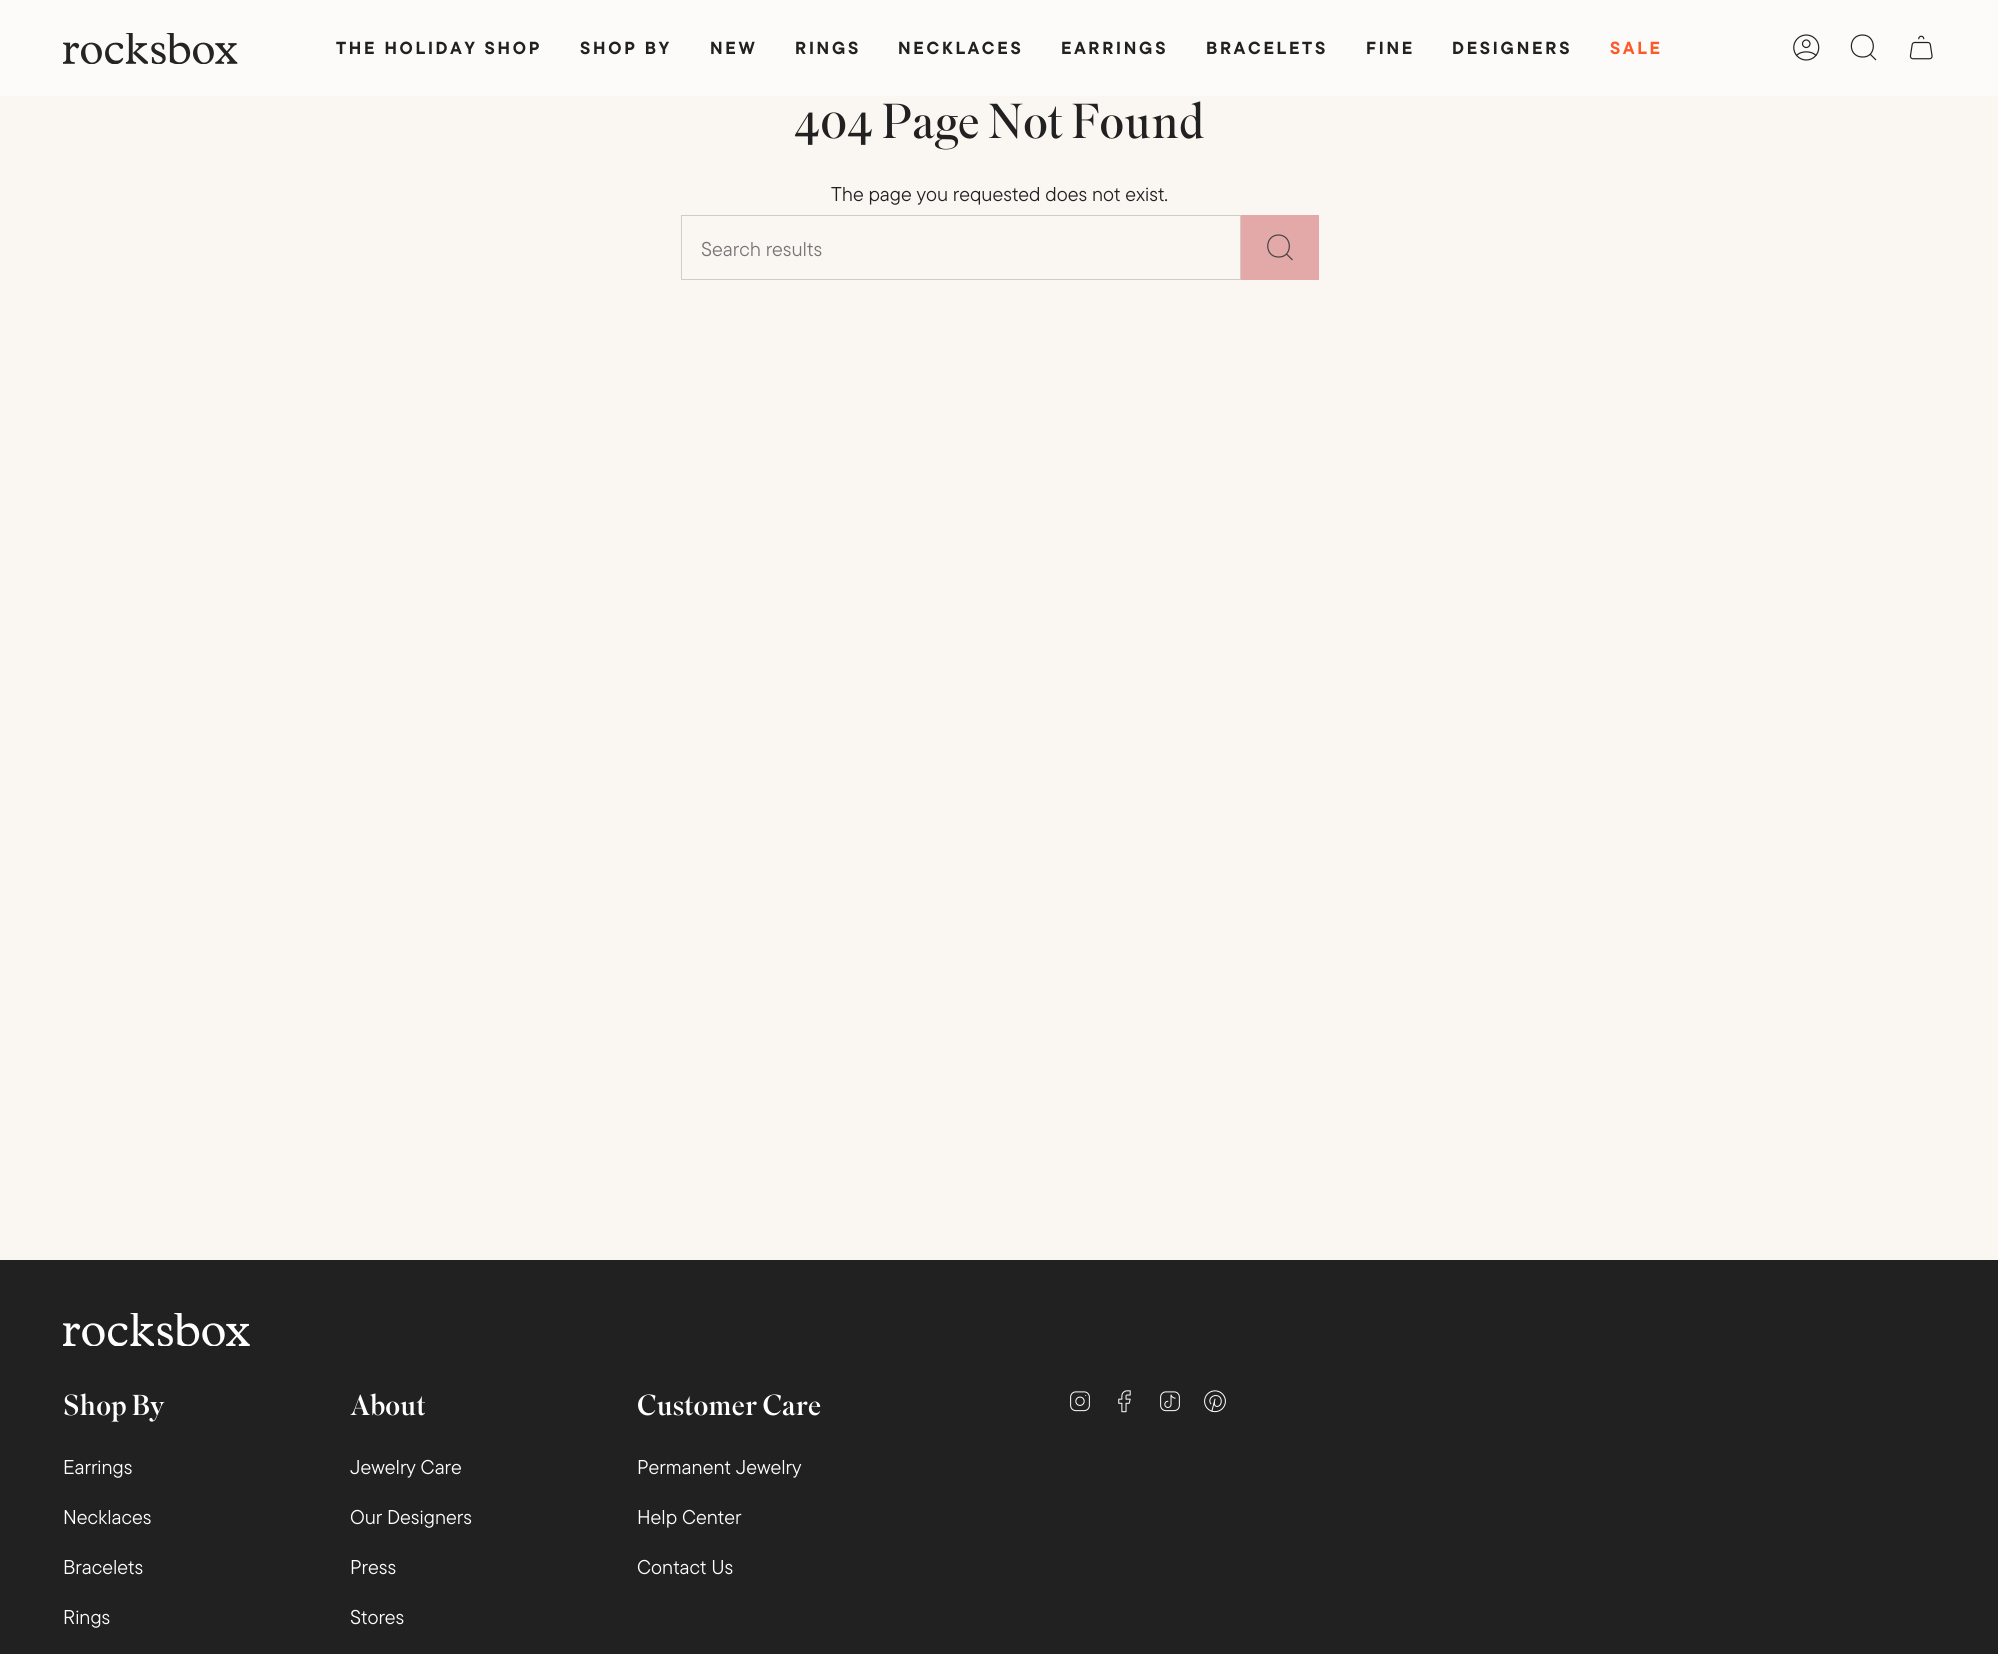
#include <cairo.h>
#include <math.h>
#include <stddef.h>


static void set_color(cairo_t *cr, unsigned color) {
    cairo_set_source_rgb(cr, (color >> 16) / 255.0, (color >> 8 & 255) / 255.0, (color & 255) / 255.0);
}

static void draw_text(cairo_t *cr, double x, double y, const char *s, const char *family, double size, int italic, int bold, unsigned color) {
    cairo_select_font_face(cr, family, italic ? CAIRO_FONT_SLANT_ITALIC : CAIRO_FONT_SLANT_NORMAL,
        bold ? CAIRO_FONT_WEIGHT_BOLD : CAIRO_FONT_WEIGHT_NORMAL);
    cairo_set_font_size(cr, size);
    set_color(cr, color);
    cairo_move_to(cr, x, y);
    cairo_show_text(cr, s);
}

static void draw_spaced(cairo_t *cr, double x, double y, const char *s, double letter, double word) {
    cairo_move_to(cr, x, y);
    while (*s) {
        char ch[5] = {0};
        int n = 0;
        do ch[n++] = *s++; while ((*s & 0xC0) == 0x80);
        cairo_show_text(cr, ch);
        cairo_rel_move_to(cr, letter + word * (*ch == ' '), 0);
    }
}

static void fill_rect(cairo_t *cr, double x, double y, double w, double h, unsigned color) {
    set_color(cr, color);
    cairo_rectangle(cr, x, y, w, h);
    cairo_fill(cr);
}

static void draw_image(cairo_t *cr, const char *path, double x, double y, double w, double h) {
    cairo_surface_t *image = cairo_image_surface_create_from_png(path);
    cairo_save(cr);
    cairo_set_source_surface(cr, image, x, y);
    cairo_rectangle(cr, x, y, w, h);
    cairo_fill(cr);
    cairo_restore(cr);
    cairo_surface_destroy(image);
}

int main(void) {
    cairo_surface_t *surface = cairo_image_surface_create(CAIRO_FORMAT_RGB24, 1998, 1654);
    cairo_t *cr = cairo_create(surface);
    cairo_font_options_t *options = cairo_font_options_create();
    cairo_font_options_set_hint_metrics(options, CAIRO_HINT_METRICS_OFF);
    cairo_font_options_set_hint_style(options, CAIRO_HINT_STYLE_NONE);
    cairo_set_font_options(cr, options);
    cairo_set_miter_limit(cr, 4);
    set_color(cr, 0xFAF7F2);
    cairo_paint(cr);
    fill_rect(cr, 0, 0, 1998, 96, 0xFCFBF9);
    draw_image(cr, "assets/img1.png", 63, 33, 175, 31);
    cairo_select_font_face(cr, "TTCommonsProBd", CAIRO_FONT_SLANT_NORMAL, CAIRO_FONT_WEIGHT_BOLD);
    cairo_set_font_size(cr, 17.5);
    set_color(cr, 0x212121);
    draw_spaced(cr, 336, 54, "THE HOLIDAY SHOP", 2.75, 0);
    draw_spaced(cr, 580, 54, "SHOP BY", 2.75, 0);
    draw_spaced(cr, 710, 54, "NEW", 2.75, 0);
    draw_spaced(cr, 795, 54, "RINGS", 2.75, 0);
    draw_spaced(cr, 898, 54, "NECKLACES", 2.75, 0);
    draw_spaced(cr, 1061, 54, "EARRINGS", 2.75, 0);
    draw_spaced(cr, 1206, 54, "BRACELETS", 2.75, 0);
    draw_spaced(cr, 1366, 54, "FINE", 2.75, 0);
    draw_spaced(cr, 1452, 54, "DESIGNERS", 2.75, 0);
    set_color(cr, 0xFC5927);
    draw_spaced(cr, 1610, 54, "SALE", 2.75, 0);
    draw_image(cr, "assets/img2.png", 1793, 34, 27, 27);
    cairo_new_path(cr);
    cairo_move_to(cr, 1862.5, 35);
    cairo_curve_to(cr, 1877, 35, 1877, 58, 1862, 57);
    cairo_curve_to(cr, 1847.5, 56.5, 1848, 35, 1862.5, 35);
    cairo_close_path(cr);
    cairo_move_to(cr, 1870, 54);
    cairo_line_to(cr, 1876, 60);
    set_color(cr, 0x212121);
    cairo_set_line_width(cr, 1.2);
    cairo_stroke(cr);
    draw_image(cr, "assets/img3.png", 1909, 35, 24, 25);
    draw_text(cr, 794, 138, "404 Page Not Found", "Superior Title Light", 48.9, 0, 0, 0x212121);
    draw_text(cr, 831, 201, "The page you requested does not exist.", "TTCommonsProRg", 20, 0, 0, 0x212121);
    cairo_rectangle(cr, 681.5, 215.5, 559, 64);
    set_color(cr, 0xD1CDC4);
    cairo_set_line_width(cr, 1);
    cairo_stroke(cr);
    draw_text(cr, 701, 256, "Search results", "TTCommonsProRg", 20, 0, 0, 0x757575);
    fill_rect(cr, 1241, 215, 78, 65, 0xE3A9A9);
    cairo_new_path(cr);
    cairo_move_to(cr, 1278.5, 235);
    cairo_curve_to(cr, 1293, 235, 1293, 258, 1278, 257);
    cairo_curve_to(cr, 1264, 256.5, 1264.5, 235, 1278.5, 235);
    cairo_close_path(cr);
    cairo_move_to(cr, 1286.5, 254);
    cairo_line_to(cr, 1292.5, 260);
    set_color(cr, 0x424242);
    cairo_set_line_width(cr, 1.2);
    cairo_stroke(cr);
    fill_rect(cr, 0, 1260, 1998, 394, 0x212121);
    draw_image(cr, "assets/img4.png", 63, 1313, 187, 33);
    draw_text(cr, 63, 1415, "Shop By", "Superior Title", 28.75, 0, 0, 0xFFFFFF);
    draw_text(cr, 63, 1474, "Earrings", "TTCommonsProRg", 20, 0, 0, 0xFFFFFF);
    draw_text(cr, 63, 1524, "Necklaces", "TTCommonsProRg", 20, 0, 0, 0xFFFFFF);
    draw_text(cr, 63, 1574, "Bracelets", "TTCommonsProRg", 20, 0, 0, 0xFFFFFF);
    draw_text(cr, 63, 1624, "Rings", "TTCommonsProRg", 20, 0, 0, 0xFFFFFF);
    draw_text(cr, 350, 1415, "About", "Superior Title", 28.75, 0, 0, 0xFFFFFF);
    draw_text(cr, 350, 1474, "Jewelry Care", "TTCommonsProRg", 20, 0, 0, 0xFFFFFF);
    draw_text(cr, 350, 1524, "Our Designers", "TTCommonsProRg", 20, 0, 0, 0xFFFFFF);
    draw_text(cr, 350, 1574, "Press", "TTCommonsProRg", 20, 0, 0, 0xFFFFFF);
    draw_text(cr, 350, 1624, "Stores", "TTCommonsProRg", 20, 0, 0, 0xFFFFFF);
    draw_text(cr, 637, 1415, "Customer Care", "Superior Title", 28.75, 0, 0, 0xFFFFFF);
    draw_text(cr, 637, 1474, "Permanent Jewelry", "TTCommonsProRg", 20, 0, 0, 0xFFFFFF);
    draw_text(cr, 637, 1524, "Help Center", "TTCommonsProRg", 20, 0, 0, 0xFFFFFF);
    draw_text(cr, 637, 1574, "Contact Us", "TTCommonsProRg", 20, 0, 0, 0xFFFFFF);
    draw_image(cr, "assets/img5.png", 1070, 1391, 20, 21);
    draw_image(cr, "assets/img6.png", 1118, 1390, 13, 23);
    draw_image(cr, "assets/img7.png", 1160, 1391, 20, 21);
    draw_image(cr, "assets/img8.png", 1204, 1390, 22, 23);
    cairo_surface_write_to_png(surface, "output.png");
    cairo_font_options_destroy(options);
    cairo_destroy(cr);
    cairo_surface_destroy(surface);
    return 0;
}
